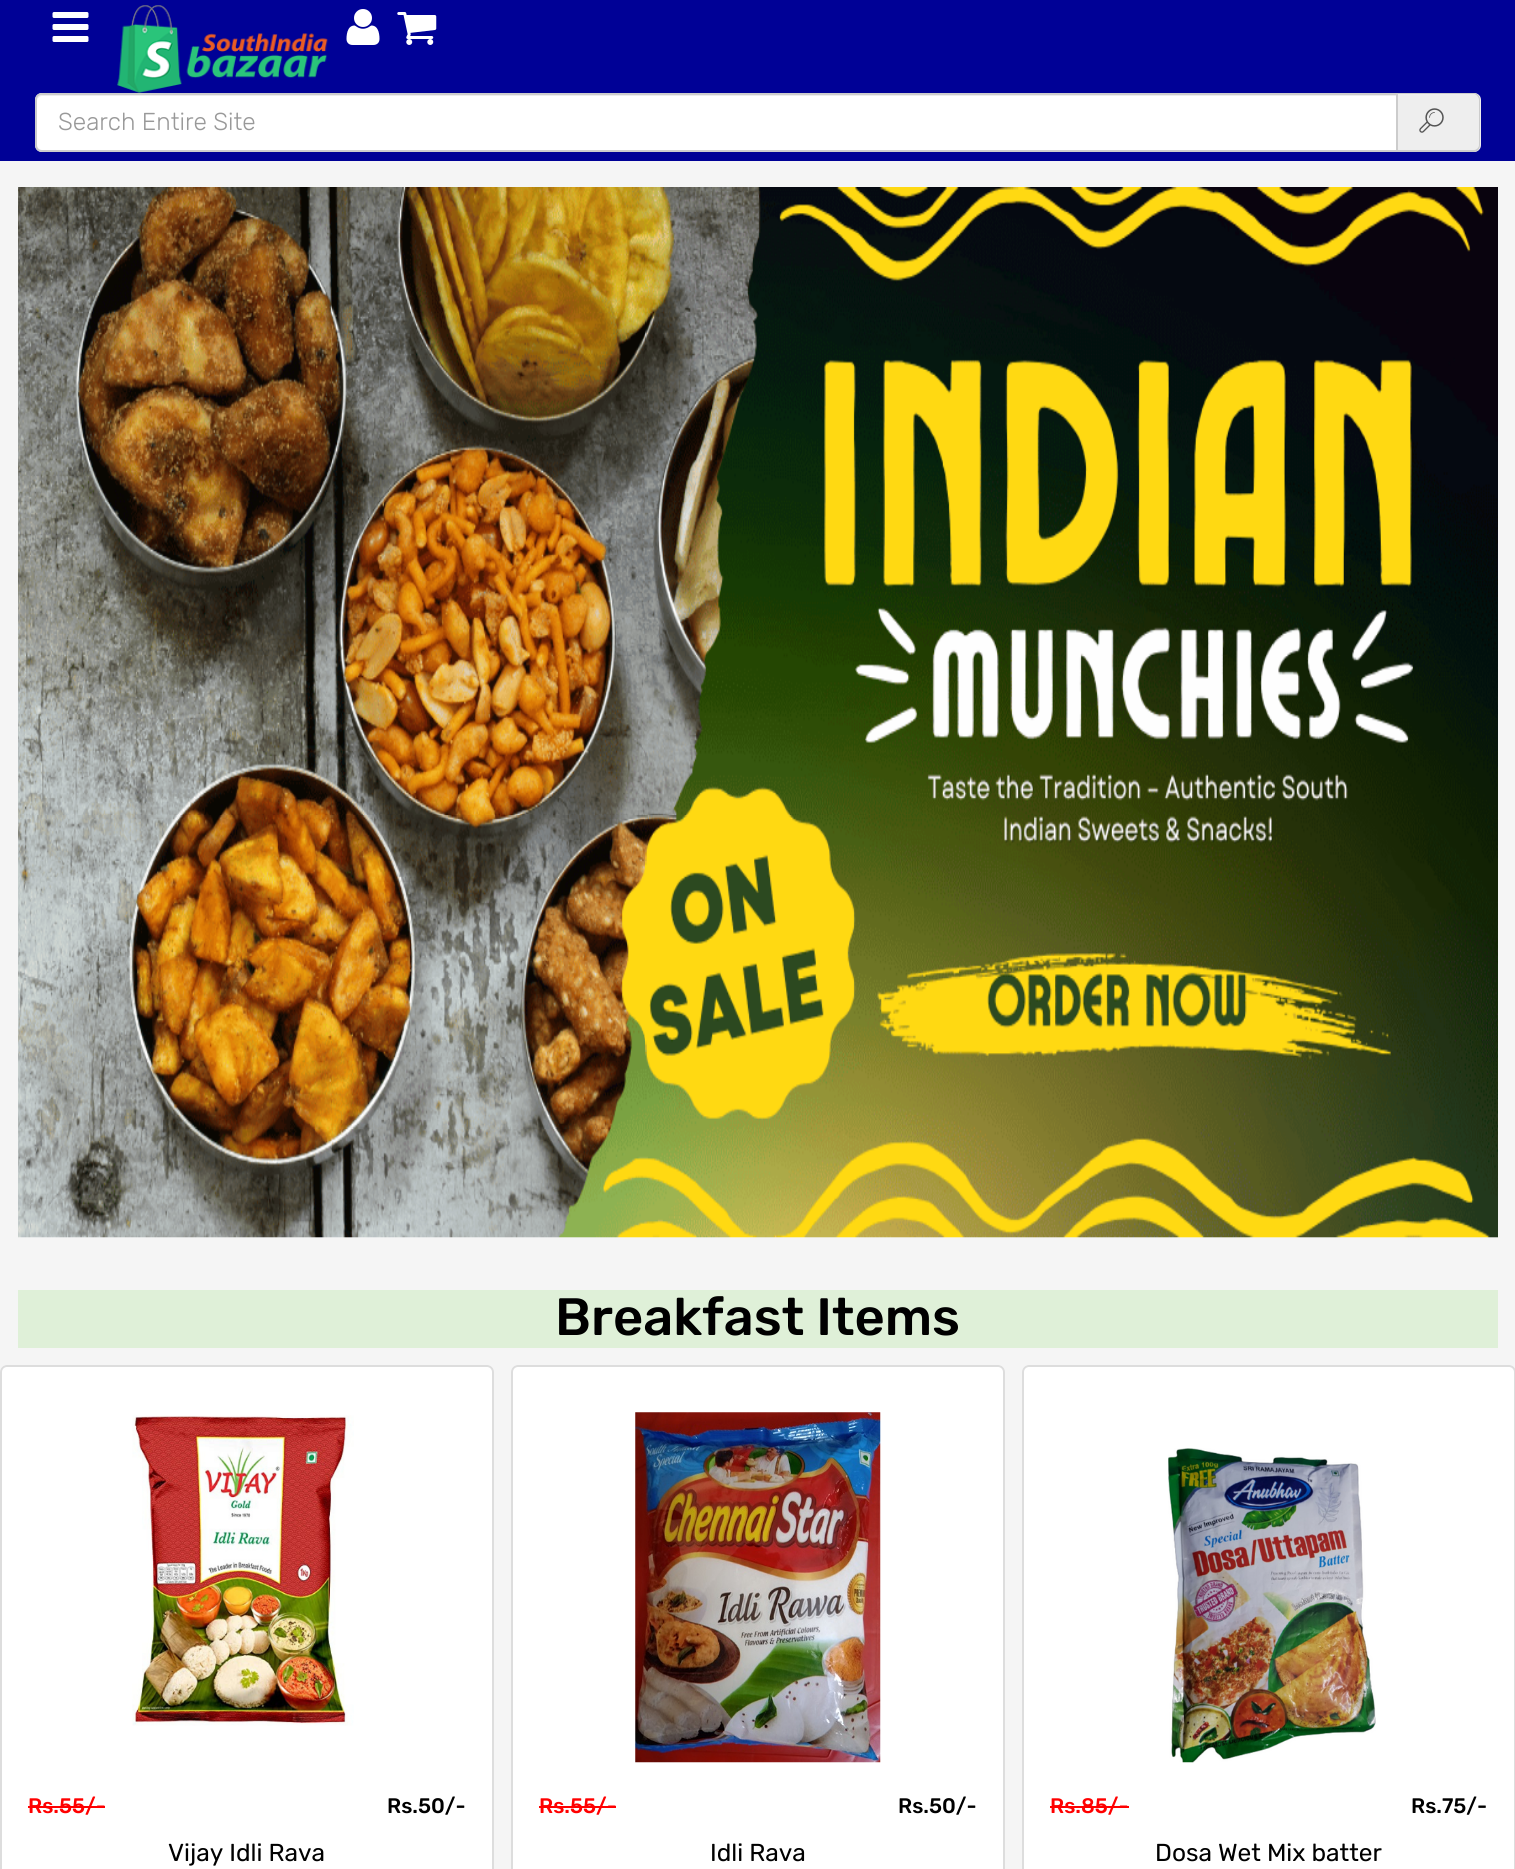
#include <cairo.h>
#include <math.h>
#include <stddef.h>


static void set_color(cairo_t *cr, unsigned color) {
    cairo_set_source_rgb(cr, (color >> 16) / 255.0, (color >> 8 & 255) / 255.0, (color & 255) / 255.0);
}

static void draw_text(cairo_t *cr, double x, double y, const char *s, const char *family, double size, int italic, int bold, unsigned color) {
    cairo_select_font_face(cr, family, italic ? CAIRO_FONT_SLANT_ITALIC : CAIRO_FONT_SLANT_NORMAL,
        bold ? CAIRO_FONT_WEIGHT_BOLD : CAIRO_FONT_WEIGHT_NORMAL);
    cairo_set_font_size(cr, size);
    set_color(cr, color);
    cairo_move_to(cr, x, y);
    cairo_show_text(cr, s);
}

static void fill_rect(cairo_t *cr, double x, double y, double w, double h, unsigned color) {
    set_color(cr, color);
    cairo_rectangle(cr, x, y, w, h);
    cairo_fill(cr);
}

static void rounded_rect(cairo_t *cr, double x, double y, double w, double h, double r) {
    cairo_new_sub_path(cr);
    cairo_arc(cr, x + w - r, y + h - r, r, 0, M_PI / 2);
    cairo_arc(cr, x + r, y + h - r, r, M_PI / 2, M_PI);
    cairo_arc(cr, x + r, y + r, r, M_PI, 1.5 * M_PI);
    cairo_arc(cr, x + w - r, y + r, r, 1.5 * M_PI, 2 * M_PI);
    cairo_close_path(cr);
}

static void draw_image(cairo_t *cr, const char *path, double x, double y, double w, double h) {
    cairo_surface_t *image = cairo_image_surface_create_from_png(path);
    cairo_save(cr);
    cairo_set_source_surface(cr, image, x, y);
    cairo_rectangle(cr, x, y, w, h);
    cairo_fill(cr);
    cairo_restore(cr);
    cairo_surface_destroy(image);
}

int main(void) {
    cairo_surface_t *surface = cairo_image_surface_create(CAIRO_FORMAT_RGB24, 1515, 1869);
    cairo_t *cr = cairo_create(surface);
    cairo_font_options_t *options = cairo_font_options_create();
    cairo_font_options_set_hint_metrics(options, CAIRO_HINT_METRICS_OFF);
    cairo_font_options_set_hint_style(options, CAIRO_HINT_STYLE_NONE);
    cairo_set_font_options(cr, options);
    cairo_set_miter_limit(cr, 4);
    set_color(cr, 0xF5F5F5);
    cairo_paint(cr);
    fill_rect(cr, 0, 0, 1515, 161, 0x000196);
    draw_image(cr, "assets/img1.png", 52, 12, 37, 30);
    draw_image(cr, "assets/img2.png", 117, 5, 211, 88);
    draw_image(cr, "assets/img3.png", 346, 9, 34, 36);
    draw_image(cr, "assets/img4.png", 397, 12, 40, 33);
    set_color(cr, 0xFFFFFF);
    cairo_new_path(cr);
    cairo_move_to(cr, 42, 93);
    cairo_line_to(cr, 1398, 93);
    cairo_line_to(cr, 1398, 152);
    cairo_line_to(cr, 42, 152);
    cairo_curve_to(cr, 38, 152, 35, 149, 35, 145);
    cairo_line_to(cr, 35, 100);
    cairo_curve_to(cr, 35, 96, 38, 93, 42, 93);
    cairo_close_path(cr);
    cairo_fill(cr);
    set_color(cr, 0xECECEC);
    cairo_new_path(cr);
    cairo_move_to(cr, 42, 96);
    cairo_line_to(cr, 1396, 96);
    cairo_line_to(cr, 1396, 151);
    cairo_line_to(cr, 1397, 151);
    cairo_line_to(cr, 1397, 95);
    cairo_line_to(cr, 42, 95);
    cairo_curve_to(cr, 38, 95, 37, 99, 37, 102);
    cairo_curve_to(cr, 37, 99, 39, 96, 42, 96);
    cairo_close_path(cr);
    cairo_fill(cr);
    cairo_new_path(cr);
    cairo_move_to(cr, 42, 94);
    cairo_line_to(cr, 1397, 94);
    cairo_line_to(cr, 1397, 151);
    cairo_line_to(cr, 42, 151);
    cairo_curve_to(cr, 38.5, 151, 36, 148.5, 36, 145);
    cairo_line_to(cr, 36, 100);
    cairo_curve_to(cr, 36, 96.5, 38.5, 94, 42, 94);
    cairo_close_path(cr);
    set_color(cr, 0xCCCCCC);
    cairo_stroke(cr);
    draw_text(cr, 58, 130, "Search Entire Site", "Rubik Light", 24.5, 0, 0, 0x999999);
    set_color(cr, 0xEEEEEE);
    cairo_new_path(cr);
    cairo_move_to(cr, 1398, 93);
    cairo_line_to(cr, 1474, 93);
    cairo_curve_to(cr, 1478, 93, 1481, 96, 1481, 100);
    cairo_line_to(cr, 1481, 145);
    cairo_curve_to(cr, 1481, 149, 1478, 152, 1474, 152);
    cairo_line_to(cr, 1398, 152);
    cairo_close_path(cr);
    cairo_fill(cr);
    set_color(cr, 0xCCCCCC);
    cairo_set_fill_rule(cr, CAIRO_FILL_RULE_EVEN_ODD);
    cairo_new_path(cr);
    cairo_move_to(cr, 1398, 93);
    cairo_line_to(cr, 1474, 93);
    cairo_curve_to(cr, 1477, 93, 1480, 96, 1480, 100);
    cairo_line_to(cr, 1480, 145);
    cairo_curve_to(cr, 1480, 149, 1477, 152, 1474, 152);
    cairo_line_to(cr, 1398, 152);
    cairo_close_path(cr);
    cairo_move_to(cr, 1398, 94);
    cairo_line_to(cr, 1474, 94);
    cairo_curve_to(cr, 1476, 94, 1479, 97, 1479, 100);
    cairo_line_to(cr, 1479, 145);
    cairo_curve_to(cr, 1479, 148, 1476, 150, 1474, 150);
    cairo_line_to(cr, 1398, 150);
    cairo_close_path(cr);
    cairo_fill(cr);
    draw_image(cr, "assets/img5.png", 1419, 108, 25, 25);
    draw_image(cr, "assets/img6.png", 18, 187, 1480, 1051);
    fill_rect(cr, 18, 1290, 1480, 58, 0xDFF0D8);
    draw_text(cr, 555, 1335, "Breakfast Items", "Rubik Medium", 52.5, 0, 0, 0x000000);
    set_color(cr, 0xFFFFFF);
    cairo_new_path(cr);
    cairo_move_to(cr, 7, 1365);
    cairo_line_to(cr, 487, 1365);
    cairo_curve_to(cr, 491, 1365, 494, 1368, 494, 1372);
    cairo_line_to(cr, 494, 1869);
    cairo_line_to(cr, 0, 1869);
    cairo_line_to(cr, 0, 1372);
    cairo_curve_to(cr, 0, 1368, 3, 1365, 7, 1365);
    cairo_close_path(cr);
    cairo_fill(cr);
    rounded_rect(cr, 1, 1366, 492, 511, 6);
    set_color(cr, 0xDDDDDD);
    cairo_stroke(cr);
    draw_image(cr, "assets/img7.png", 132, 1415, 222, 311);
    draw_text(cr, 28, 1813, "Rs.55/-", "Rubik Medium", 21, 0, 0, 0xFF0000);
    fill_rect(cr, 28, 1806, 77, 2, 0xFF0000);
    draw_text(cr, 387, 1813, "Rs.50/-", "Rubik Medium", 21, 0, 0, 0x000000);
    draw_text(cr, 168, 1861, "Vijay Idli Rava", "Rubik", 24.5, 0, 0, 0x000000);
    set_color(cr, 0xFFFFFF);
    cairo_new_path(cr);
    cairo_move_to(cr, 518, 1365);
    cairo_line_to(cr, 998, 1365);
    cairo_curve_to(cr, 1002, 1365, 1005, 1368, 1005, 1372);
    cairo_line_to(cr, 1005, 1869);
    cairo_line_to(cr, 511, 1869);
    cairo_line_to(cr, 511, 1372);
    cairo_curve_to(cr, 511, 1368, 514, 1365, 518, 1365);
    cairo_close_path(cr);
    cairo_fill(cr);
    rounded_rect(cr, 512, 1366, 492, 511, 6);
    set_color(cr, 0xDDDDDD);
    cairo_stroke(cr);
    draw_image(cr, "assets/img8.png", 635, 1412, 246, 351);
    draw_text(cr, 539, 1813, "Rs.55/-", "Rubik Medium", 21, 0, 0, 0xFF0000);
    fill_rect(cr, 539, 1806, 77, 2, 0xFF0000);
    draw_text(cr, 898, 1813, "Rs.50/-", "Rubik Medium", 21, 0, 0, 0x000000);
    draw_text(cr, 710, 1861, "Idli Rava", "Rubik", 24.5, 0, 0, 0x000000);
    set_color(cr, 0xFFFFFF);
    cairo_new_path(cr);
    cairo_move_to(cr, 1029, 1365);
    cairo_line_to(cr, 1509, 1365);
    cairo_curve_to(cr, 1513, 1365, 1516, 1368, 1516, 1372);
    cairo_line_to(cr, 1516, 1869);
    cairo_line_to(cr, 1022, 1869);
    cairo_line_to(cr, 1022, 1372);
    cairo_curve_to(cr, 1022, 1368, 1025, 1365, 1029, 1365);
    cairo_close_path(cr);
    cairo_fill(cr);
    rounded_rect(cr, 1023, 1366, 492, 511, 6);
    set_color(cr, 0xDDDDDD);
    cairo_stroke(cr);
    draw_image(cr, "assets/img9.png", 1168, 1448, 208, 315);
    draw_text(cr, 1050, 1813, "Rs.85/-", "Rubik Medium", 21, 0, 0, 0xFF0000);
    fill_rect(cr, 1050, 1806, 79, 2, 0xFF0000);
    draw_text(cr, 1411, 1813, "Rs.75/-", "Rubik Medium", 21, 0, 0, 0x000000);
    draw_text(cr, 1155, 1861, "Dosa Wet Mix batter", "Rubik", 24.5, 0, 0, 0x000000);
    cairo_surface_write_to_png(surface, "output.png");
    cairo_font_options_destroy(options);
    cairo_destroy(cr);
    cairo_surface_destroy(surface);
    return 0;
}
